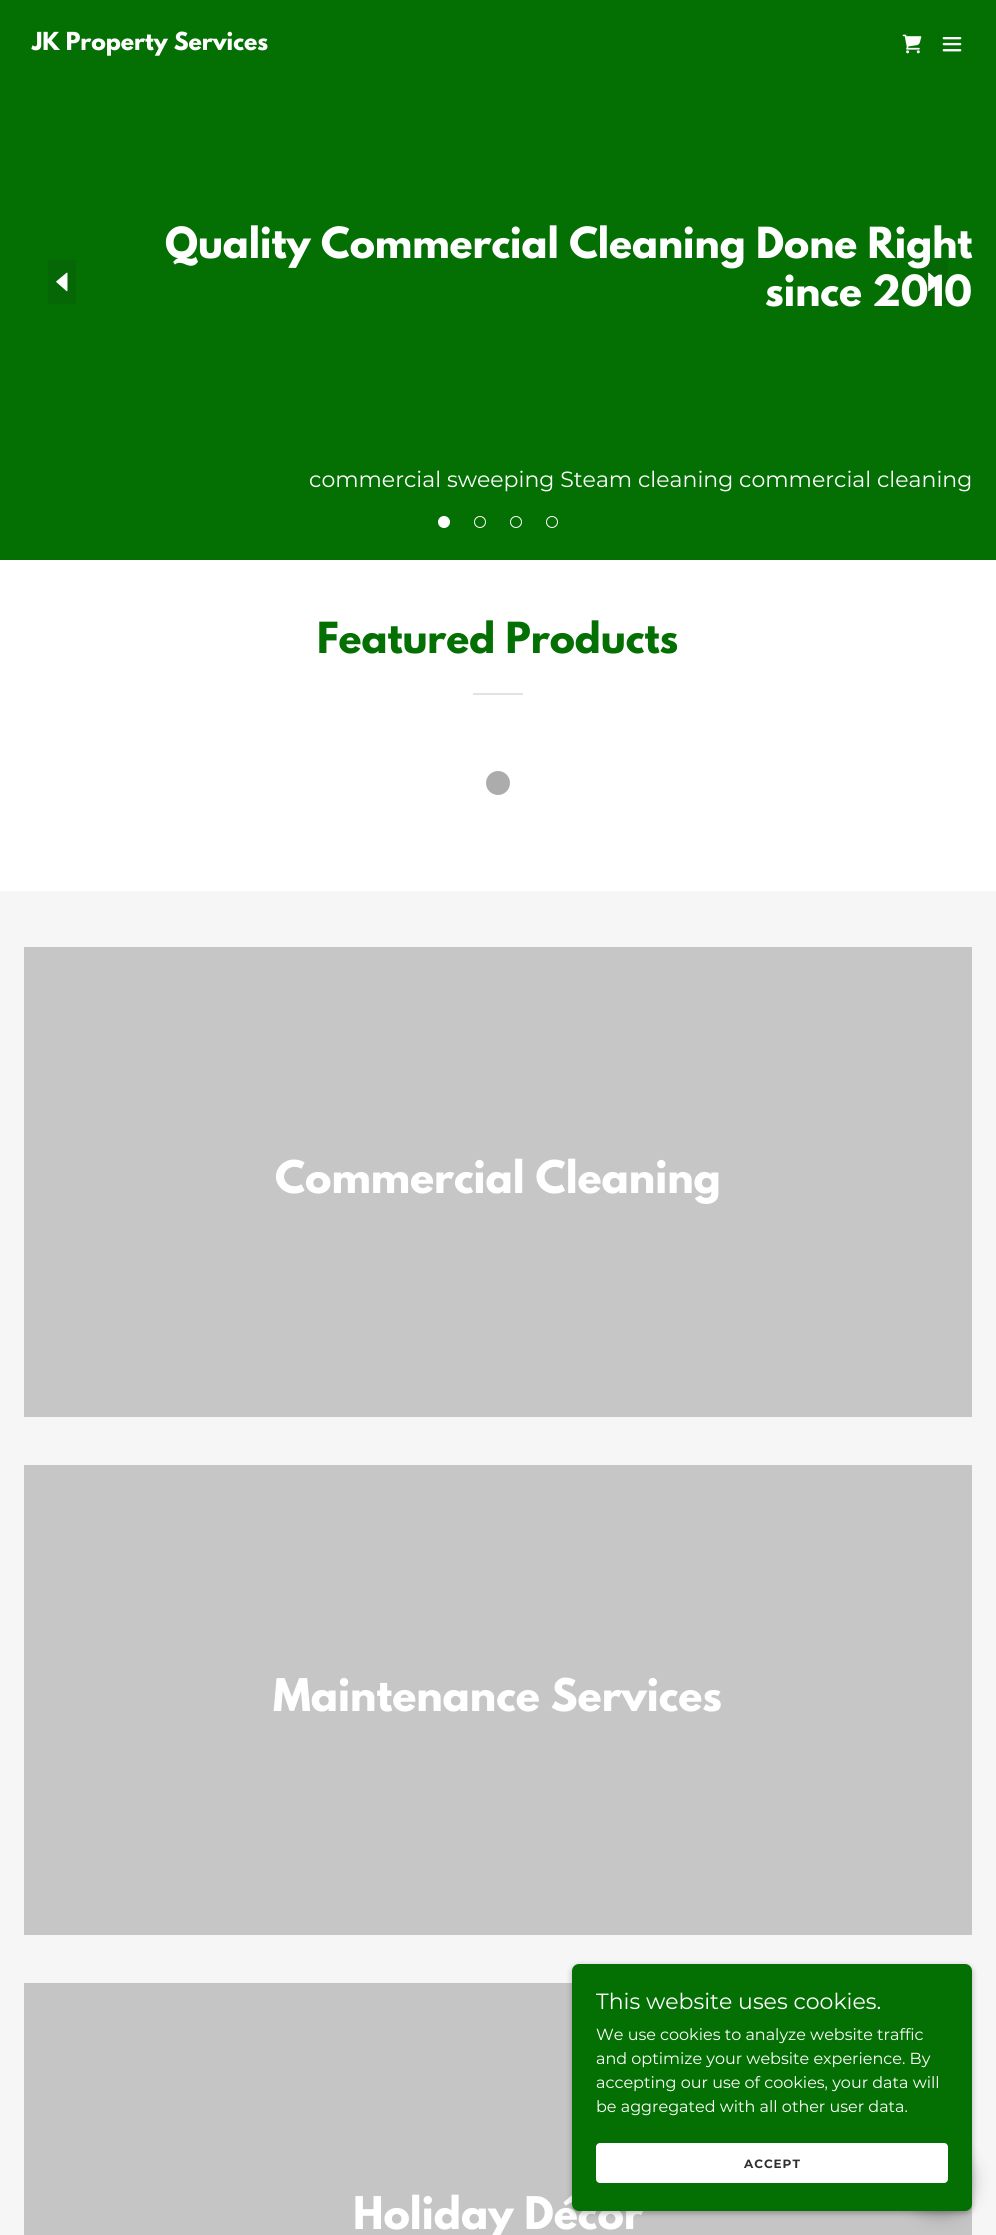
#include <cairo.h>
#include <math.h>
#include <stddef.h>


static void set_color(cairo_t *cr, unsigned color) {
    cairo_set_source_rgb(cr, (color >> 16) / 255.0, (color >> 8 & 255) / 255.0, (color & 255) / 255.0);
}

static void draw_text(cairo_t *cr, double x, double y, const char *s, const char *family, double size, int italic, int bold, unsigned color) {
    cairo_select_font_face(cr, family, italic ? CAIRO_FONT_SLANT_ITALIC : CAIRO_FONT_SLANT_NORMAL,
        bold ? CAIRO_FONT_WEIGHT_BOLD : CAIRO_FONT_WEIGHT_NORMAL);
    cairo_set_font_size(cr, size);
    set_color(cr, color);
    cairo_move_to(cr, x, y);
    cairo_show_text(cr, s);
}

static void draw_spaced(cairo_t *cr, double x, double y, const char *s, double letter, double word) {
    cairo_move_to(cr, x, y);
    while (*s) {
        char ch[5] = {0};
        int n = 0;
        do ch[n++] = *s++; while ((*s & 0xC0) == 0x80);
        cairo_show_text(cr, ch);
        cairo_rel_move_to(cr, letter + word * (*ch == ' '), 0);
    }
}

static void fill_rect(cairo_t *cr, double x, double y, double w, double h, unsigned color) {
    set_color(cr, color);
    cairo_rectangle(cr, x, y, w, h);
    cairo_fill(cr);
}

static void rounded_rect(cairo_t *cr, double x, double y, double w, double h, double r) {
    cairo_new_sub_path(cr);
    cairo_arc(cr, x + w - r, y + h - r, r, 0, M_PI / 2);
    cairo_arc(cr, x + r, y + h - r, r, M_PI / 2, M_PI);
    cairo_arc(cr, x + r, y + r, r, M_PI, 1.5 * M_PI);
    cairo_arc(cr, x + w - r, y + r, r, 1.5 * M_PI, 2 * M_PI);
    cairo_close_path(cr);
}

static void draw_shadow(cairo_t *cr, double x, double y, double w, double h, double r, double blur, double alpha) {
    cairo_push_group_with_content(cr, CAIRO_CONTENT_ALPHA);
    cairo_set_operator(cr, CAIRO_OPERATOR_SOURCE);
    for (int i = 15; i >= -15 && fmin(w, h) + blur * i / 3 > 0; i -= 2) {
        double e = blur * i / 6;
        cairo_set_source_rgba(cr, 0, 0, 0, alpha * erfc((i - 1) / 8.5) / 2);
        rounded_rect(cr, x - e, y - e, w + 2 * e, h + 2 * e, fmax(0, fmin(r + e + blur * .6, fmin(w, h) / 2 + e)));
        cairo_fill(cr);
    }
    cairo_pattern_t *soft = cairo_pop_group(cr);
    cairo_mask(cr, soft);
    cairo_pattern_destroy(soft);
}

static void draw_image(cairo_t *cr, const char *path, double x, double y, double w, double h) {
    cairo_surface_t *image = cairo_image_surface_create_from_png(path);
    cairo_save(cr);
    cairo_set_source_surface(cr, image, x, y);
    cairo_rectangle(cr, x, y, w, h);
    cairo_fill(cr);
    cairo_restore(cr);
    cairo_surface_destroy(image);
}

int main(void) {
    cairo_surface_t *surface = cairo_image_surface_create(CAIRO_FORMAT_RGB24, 996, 2235);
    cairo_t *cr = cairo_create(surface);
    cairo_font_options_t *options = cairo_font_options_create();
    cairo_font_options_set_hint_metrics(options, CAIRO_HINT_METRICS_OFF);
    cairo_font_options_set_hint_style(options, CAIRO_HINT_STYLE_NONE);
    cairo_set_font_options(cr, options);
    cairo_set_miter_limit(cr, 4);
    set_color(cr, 0x047004);
    cairo_paint(cr);
    draw_text(cr, 32, 50, "JK Property Services", "League Spartan", 22, 0, 1, 0xFFFFFF);
    draw_image(cr, "assets/img1.png", 902, 34, 20, 20);
    draw_image(cr, "assets/img2.png", 942, 37, 20, 15);
    fill_rect(cr, 920, 260, 28, 44, 0x066706);
    draw_text(cr, 165, 258, "Quality Commercial Cleaning Done Right", "League Spartan", 38, 0, 1, 0xFFFFFF);
    draw_image(cr, "assets/img4.png", 928, 272, 12, 20);
    draw_text(cr, 765, 306, "since 2010", "League Spartan", 38, 0, 1, 0xFFFFFF);
    draw_text(cr, 309, 487, "commercial sweeping Steam cleaning commercial cleaning", "Montserrat", 22, 0, 0, 0xFFFFFF);
    fill_rect(cr, 48, 260, 28, 44, 0x066706);
    draw_image(cr, "assets/img3.png", 56, 272, 12, 20);
    set_color(cr, 0xFFFFFF);
    cairo_arc(cr, 444, 522, 5.5, 0, 2 * M_PI);
    cairo_fill_preserve(cr);
    cairo_set_line_width(cr, 1);
    cairo_stroke(cr);
    cairo_arc(cr, 480, 522, 5.5, 0, 2 * M_PI);
    cairo_stroke(cr);
    cairo_arc(cr, 516, 522, 5.5, 0, 2 * M_PI);
    cairo_stroke(cr);
    cairo_arc(cr, 552, 522, 5.5, 0, 2 * M_PI);
    cairo_stroke(cr);
    fill_rect(cr, 0, 560, 996, 331, 0xFFFFFF);
    draw_text(cr, 317, 653, "Featured Products", "League Spartan", 38, 0, 1, 0x047004);
    fill_rect(cr, 473, 693, 50, 2, 0xE2E2E2);
    set_color(cr, 0xACACAC);
    cairo_new_path(cr);
    cairo_arc(cr, 498, 783, 12, 0, 2 * M_PI);
    cairo_fill(cr);
    fill_rect(cr, 0, 891, 996, 1344, 0xF6F6F6);
    fill_rect(cr, 24, 947, 948, 470, 0xC6C6C6);
    draw_text(cr, 275, 1193, "Commercial Cleaning", "League Spartan", 39.9, 0, 1, 0xFFFFFF);
    fill_rect(cr, 24, 1465, 948, 470, 0xC6C6C6);
    draw_text(cr, 273, 1711, "Maintenance Services", "League Spartan", 39.9, 0, 1, 0xFFFFFF);
    fill_rect(cr, 24, 1983, 948, 252, 0xC5C5C5);
    draw_text(cr, 353, 2229, "Holiday Décor", "League Spartan", 39.9, 0, 1, 0xFFFFFF);
    set_color(cr, 0x000000);
    draw_shadow(cr, 572, 1966, 400, 247, 7, 3, 0.3);
    draw_shadow(cr, 907, 2149, 65, 65, 32.5, 9, 0.25);
    set_color(cr, 0x047004);
    rounded_rect(cr, 572, 1964, 400, 247, 7);
    cairo_fill(cr);
    draw_text(cr, 596, 2009, "This website uses cookies.", "Montserrat", 22, 0, 0, 0xFFFFFF);
    draw_text(cr, 596, 2040, "We use cookies to analyze website traffic", "Montserrat", 16, 0, 0, 0xFFFFFF);
    draw_text(cr, 596, 2064, "and optimize your website experience. By", "Montserrat", 16, 0, 0, 0xFFFFFF);
    draw_text(cr, 596, 2088, "accepting our use of cookies, your data will", "Montserrat", 16, 0, 0, 0xFFFFFF);
    draw_text(cr, 596, 2112, "be aggregated with all other user data.", "Montserrat", 16, 0, 0, 0xFFFFFF);
    rounded_rect(cr, 596, 2143, 352, 40, 4);
    cairo_fill(cr);
    cairo_select_font_face(cr, "Montserrat", CAIRO_FONT_SLANT_NORMAL, CAIRO_FONT_WEIGHT_BOLD);
    cairo_set_font_size(cr, 12);
    set_color(cr, 0x303030);
    draw_spaced(cr, 744, 2168, "ACCEPT", 1, 0);
    cairo_surface_write_to_png(surface, "output.png");
    cairo_font_options_destroy(options);
    cairo_destroy(cr);
    cairo_surface_destroy(surface);
    return 0;
}
